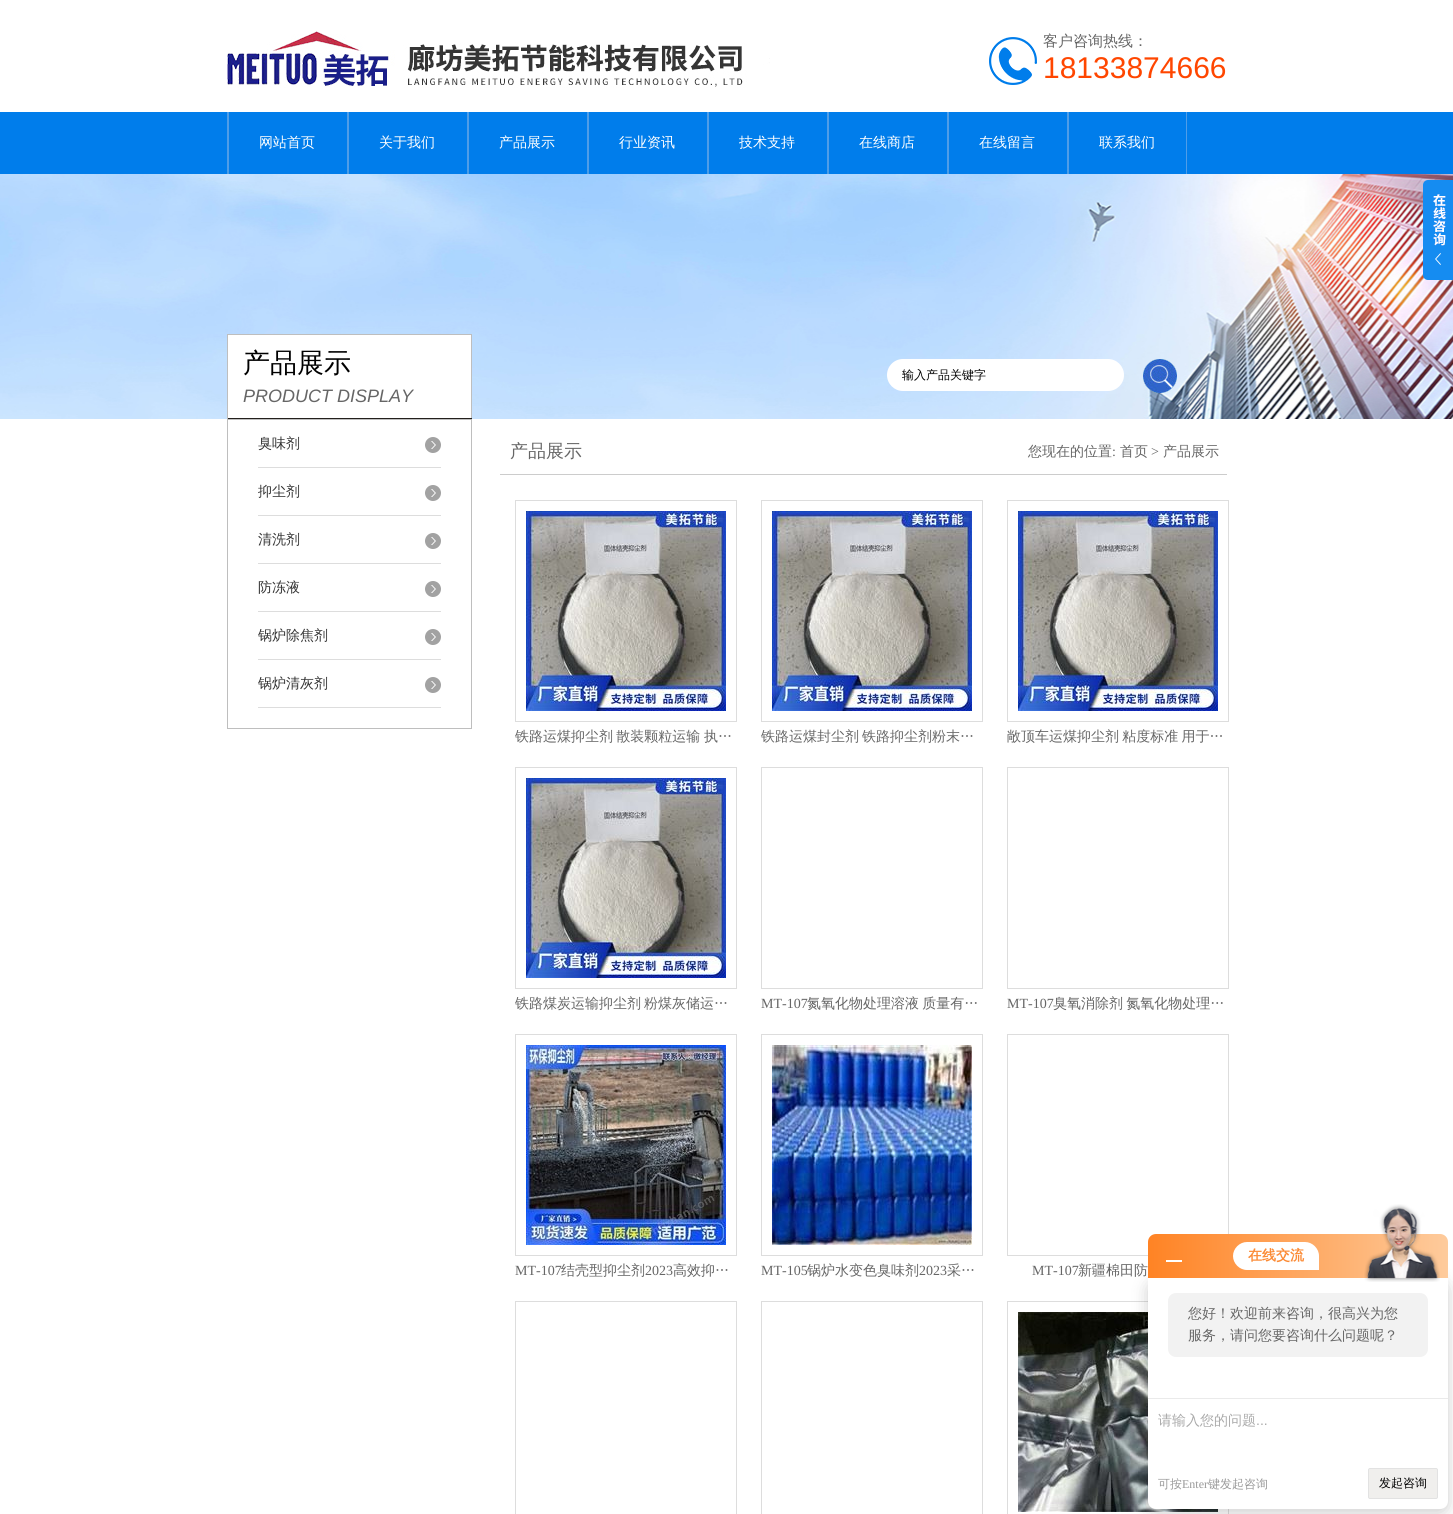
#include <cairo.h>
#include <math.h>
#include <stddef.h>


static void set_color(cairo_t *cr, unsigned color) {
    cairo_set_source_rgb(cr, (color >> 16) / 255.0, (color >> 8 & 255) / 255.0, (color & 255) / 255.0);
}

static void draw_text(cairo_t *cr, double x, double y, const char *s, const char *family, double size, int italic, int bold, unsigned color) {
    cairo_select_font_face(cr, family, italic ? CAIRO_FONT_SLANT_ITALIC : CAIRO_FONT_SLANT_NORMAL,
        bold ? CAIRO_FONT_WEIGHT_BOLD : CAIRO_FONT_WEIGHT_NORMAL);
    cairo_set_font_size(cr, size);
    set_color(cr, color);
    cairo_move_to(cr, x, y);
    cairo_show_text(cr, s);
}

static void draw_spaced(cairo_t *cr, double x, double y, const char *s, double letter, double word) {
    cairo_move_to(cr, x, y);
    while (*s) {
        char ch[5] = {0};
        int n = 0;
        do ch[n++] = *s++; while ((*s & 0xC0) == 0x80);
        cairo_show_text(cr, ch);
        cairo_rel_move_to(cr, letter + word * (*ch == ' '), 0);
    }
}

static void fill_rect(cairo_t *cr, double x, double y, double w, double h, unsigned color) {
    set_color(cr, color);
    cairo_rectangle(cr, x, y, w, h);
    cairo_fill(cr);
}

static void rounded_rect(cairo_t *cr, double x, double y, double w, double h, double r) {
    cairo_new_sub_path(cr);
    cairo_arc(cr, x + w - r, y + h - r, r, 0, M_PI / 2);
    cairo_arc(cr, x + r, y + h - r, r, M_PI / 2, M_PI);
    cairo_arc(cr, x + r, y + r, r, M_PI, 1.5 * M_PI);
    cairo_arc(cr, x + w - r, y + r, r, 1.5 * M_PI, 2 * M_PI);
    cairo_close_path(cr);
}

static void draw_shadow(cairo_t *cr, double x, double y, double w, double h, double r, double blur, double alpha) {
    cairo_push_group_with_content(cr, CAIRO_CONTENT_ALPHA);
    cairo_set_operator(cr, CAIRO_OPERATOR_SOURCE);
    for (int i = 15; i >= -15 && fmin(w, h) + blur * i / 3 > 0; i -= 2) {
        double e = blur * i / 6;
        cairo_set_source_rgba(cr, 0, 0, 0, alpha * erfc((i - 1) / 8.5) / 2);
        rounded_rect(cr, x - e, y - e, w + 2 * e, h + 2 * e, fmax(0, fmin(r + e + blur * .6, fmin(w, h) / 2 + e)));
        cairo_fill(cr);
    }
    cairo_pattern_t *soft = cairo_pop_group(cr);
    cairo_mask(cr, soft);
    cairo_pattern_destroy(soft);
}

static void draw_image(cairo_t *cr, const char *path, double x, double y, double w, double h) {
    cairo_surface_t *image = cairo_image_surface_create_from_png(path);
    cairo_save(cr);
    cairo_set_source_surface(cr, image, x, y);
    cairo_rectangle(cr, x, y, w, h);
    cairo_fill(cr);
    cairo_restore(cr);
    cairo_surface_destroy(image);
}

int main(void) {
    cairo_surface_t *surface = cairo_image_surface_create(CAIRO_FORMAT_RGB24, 1453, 1514);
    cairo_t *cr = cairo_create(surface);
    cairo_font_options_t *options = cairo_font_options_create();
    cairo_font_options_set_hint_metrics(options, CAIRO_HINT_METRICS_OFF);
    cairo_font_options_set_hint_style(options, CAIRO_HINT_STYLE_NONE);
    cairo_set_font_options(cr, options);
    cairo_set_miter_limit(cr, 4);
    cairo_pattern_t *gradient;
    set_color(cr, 0xFFFFFF);
    cairo_paint(cr);
    draw_image(cr, "assets/img1.png", 227, 31, 543, 57);
    draw_image(cr, "assets/img2.png", 989, 37, 48, 48);
    draw_text(cr, 1043, 46, "客户咨询热线：", "WenQuanYi Zen Hei Medium", 15, 0, 0, 0x666666);
    draw_text(cr, 1043, 78, "18133874666", "Liberation Sans", 30, 0, 0, 0xFF4600);
    fill_rect(cr, 0, 112, 1453, 62, 0x007DEB);
    draw_image(cr, "assets/img3.png", 227, 112, 2, 62);
    draw_text(cr, 259, 147, "网站首页", "WenQuanYi Zen Hei Medium", 14, 0, 0, 0xFFFFFF);
    draw_image(cr, "assets/img3.png", 347, 112, 2, 62);
    draw_text(cr, 379, 147, "关于我们", "WenQuanYi Zen Hei Medium", 14, 0, 0, 0xFFFFFF);
    draw_image(cr, "assets/img3.png", 467, 112, 2, 62);
    draw_text(cr, 499, 147, "产品展示", "WenQuanYi Zen Hei Medium", 14, 0, 0, 0xFFFFFF);
    draw_image(cr, "assets/img3.png", 587, 112, 2, 62);
    draw_text(cr, 619, 147, "行业资讯", "WenQuanYi Zen Hei Medium", 14, 0, 0, 0xFFFFFF);
    draw_image(cr, "assets/img3.png", 707, 112, 2, 62);
    draw_text(cr, 739, 147, "技术支持", "WenQuanYi Zen Hei Medium", 14, 0, 0, 0xFFFFFF);
    draw_image(cr, "assets/img3.png", 827, 112, 2, 62);
    draw_text(cr, 859, 147, "在线商店", "WenQuanYi Zen Hei Medium", 14, 0, 0, 0xFFFFFF);
    draw_image(cr, "assets/img3.png", 947, 112, 2, 62);
    draw_text(cr, 979, 147, "在线留言", "WenQuanYi Zen Hei Medium", 14, 0, 0, 0xFFFFFF);
    draw_image(cr, "assets/img3.png", 1067, 112, 2, 62);
    draw_image(cr, "assets/img4.png", 1186, 112, 1, 62);
    draw_text(cr, 1099, 147, "联系我们", "WenQuanYi Zen Hei Medium", 14, 0, 0, 0xFFFFFF);
    draw_image(cr, "assets/img5.png", 0, 174, 1453, 245);
    draw_image(cr, "assets/img6.png", 1423, 180, 30, 100);
    fill_rect(cr, 228, 335, 243, 83, 0xFFFFFF);
    fill_rect(cr, 227, 334, 245, 1, 0xBEBEBE);
    fill_rect(cr, 471, 334, 1, 85, 0xBEBEBE);
    fill_rect(cr, 227, 418, 245, 1, 0x23201D);
    fill_rect(cr, 227, 334, 1, 85, 0xBEBEBE);
    draw_text(cr, 243, 372, "产品展示", "WenQuanYi Zen Hei Medium", 27, 0, 0, 0x000000);
    draw_text(cr, 243, 402, "PRODUCT DISPLAY", "Liberation Sans", 18, 1, 0, 0x666666);
    set_color(cr, 0xFFFFFF);
    rounded_rect(cr, 887, 359, 237, 32, 16);
    cairo_fill(cr);
    draw_text(cr, 902, 379, "输入产品关键字", "WenQuanYi Zen Hei Medium", 12, 0, 0, 0x000000);
    draw_image(cr, "assets/img7.png", 1143, 359, 34, 34);
    cairo_rectangle(cr, 227.5, 419.5, 244, 309);
    set_color(cr, 0xBEBEBE);
    cairo_set_line_width(cr, 1);
    cairo_stroke(cr);
    draw_image(cr, "assets/img8.png", 425, 437, 16, 16);
    fill_rect(cr, 258, 467, 183, 1, 0xDDDDDD);
    draw_text(cr, 258, 448, "臭味剂", "WenQuanYi Zen Hei Medium", 14, 0, 0, 0x333333);
    draw_image(cr, "assets/img8.png", 425, 485, 16, 16);
    fill_rect(cr, 258, 515, 183, 1, 0xDDDDDD);
    draw_text(cr, 258, 496, "抑尘剂", "WenQuanYi Zen Hei Medium", 14, 0, 0, 0x333333);
    draw_image(cr, "assets/img8.png", 425, 533, 16, 16);
    fill_rect(cr, 258, 563, 183, 1, 0xDDDDDD);
    draw_text(cr, 258, 544, "清洗剂", "WenQuanYi Zen Hei Medium", 14, 0, 0, 0x333333);
    draw_image(cr, "assets/img8.png", 425, 581, 16, 16);
    fill_rect(cr, 258, 611, 183, 1, 0xDDDDDD);
    draw_text(cr, 258, 592, "防冻液", "WenQuanYi Zen Hei Medium", 14, 0, 0, 0x333333);
    draw_image(cr, "assets/img8.png", 425, 629, 16, 16);
    fill_rect(cr, 258, 659, 183, 1, 0xDDDDDD);
    draw_text(cr, 258, 640, "锅炉除焦剂", "WenQuanYi Zen Hei Medium", 14, 0, 0, 0x333333);
    draw_image(cr, "assets/img8.png", 425, 677, 16, 16);
    fill_rect(cr, 258, 707, 183, 1, 0xDDDDDD);
    draw_text(cr, 258, 688, "锅炉清灰剂", "WenQuanYi Zen Hei Medium", 14, 0, 0, 0x333333);
    fill_rect(cr, 500, 474, 727, 1, 0xCCCCCC);
    draw_text(cr, 510, 457, "产品展示", "WenQuanYi Zen Hei Medium", 18, 0, 0, 0x666666);
    draw_text(cr, 1028, 456, "您现在的位置", "WenQuanYi Zen Hei Medium", 14, 0, 0, 0x666666);
    draw_text(cr, 1112, 456, ":", "Liberation Serif", 14, 0, 0, 0x666666);
    draw_text(cr, 1120, 456, "首页", "WenQuanYi Zen Hei Medium", 14, 0, 0, 0x666666);
    draw_text(cr, 1151, 456, ">", "Liberation Serif", 14, 0, 0, 0x666666);
    draw_text(cr, 1163, 456, "产品展示", "WenQuanYi Zen Hei Medium", 14, 0, 0, 0x666666);
    cairo_rectangle(cr, 515.5, 500.5, 221, 221);
    set_color(cr, 0xDDDDDD);
    cairo_stroke(cr);
    draw_image(cr, "assets/img9.png", 526, 511, 200, 200);
    set_color(cr, 0x666666);
    draw_spaced(cr, 515, 741, "铁路运煤抑尘剂 散装颗粒运输", 0, -1);
    draw_text(cr, 704, 741, "执…", "WenQuanYi Zen Hei Medium", 14, 0, 0, 0x666666);
    cairo_rectangle(cr, 761.5, 500.5, 221, 221);
    set_color(cr, 0xDDDDDD);
    cairo_stroke(cr);
    draw_image(cr, "assets/img9.png", 772, 511, 200, 200);
    draw_text(cr, 761, 741, "铁路运煤封尘剂", "WenQuanYi Zen Hei Medium", 14, 0, 0, 0x666666);
    draw_text(cr, 862, 741, "铁路抑尘剂粉末…", "WenQuanYi Zen Hei Medium", 14, 0, 0, 0x666666);
    cairo_rectangle(cr, 1007.5, 500.5, 221, 221);
    set_color(cr, 0xDDDDDD);
    cairo_stroke(cr);
    draw_image(cr, "assets/img9.png", 1018, 511, 200, 200);
    set_color(cr, 0x666666);
    draw_spaced(cr, 1007, 741, "敞顶车运煤抑尘剂 粘度标准 用于…", 0, -1);
    cairo_rectangle(cr, 515.5, 767.5, 221, 221);
    set_color(cr, 0xDDDDDD);
    cairo_stroke(cr);
    draw_image(cr, "assets/img9.png", 526, 778, 200, 200);
    draw_text(cr, 515, 1008, "铁路煤炭运输抑尘剂", "WenQuanYi Zen Hei Medium", 14, 0, 0, 0x666666);
    draw_spaced(cr, 644, 1008, "粉煤灰储运…", 0, -1);
    cairo_rectangle(cr, 761.5, 767.5, 221, 221);
    set_color(cr, 0xDDDDDD);
    cairo_stroke(cr);
    draw_text(cr, 761, 1008, "MT-107", "Liberation Serif", 14, 0, 0, 0x666666);
    cairo_select_font_face(cr, "WenQuanYi Zen Hei Medium", CAIRO_FONT_SLANT_NORMAL, CAIRO_FONT_WEIGHT_NORMAL);
    draw_spaced(cr, 807, 1008, "氮氧化物处理溶液 质量有…", 0, -1);
    cairo_rectangle(cr, 1007.5, 767.5, 221, 221);
    set_color(cr, 0xDDDDDD);
    cairo_stroke(cr);
    draw_text(cr, 1007, 1008, "MT-107", "Liberation Serif", 14, 0, 0, 0x666666);
    cairo_select_font_face(cr, "WenQuanYi Zen Hei Medium", CAIRO_FONT_SLANT_NORMAL, CAIRO_FONT_WEIGHT_NORMAL);
    draw_spaced(cr, 1053, 1008, "臭氧消除剂 氮氧化物处理…", 0, -1);
    cairo_rectangle(cr, 515.5, 1034.5, 221, 221);
    set_color(cr, 0xDDDDDD);
    cairo_stroke(cr);
    draw_image(cr, "assets/img10.png", 526, 1045, 200, 200);
    draw_text(cr, 515, 1275, "MT-107", "Liberation Serif", 14, 0, 0, 0x666666);
    draw_text(cr, 561, 1275, "结壳型抑尘剂", "WenQuanYi Zen Hei Medium", 14, 0, 0, 0x666666);
    draw_text(cr, 645, 1275, "2023", "Liberation Serif", 14, 0, 0, 0x666666);
    cairo_select_font_face(cr, "WenQuanYi Zen Hei Medium", CAIRO_FONT_SLANT_NORMAL, CAIRO_FONT_WEIGHT_NORMAL);
    draw_spaced(cr, 673, 1275, "高效抑…", 0, -1);
    cairo_rectangle(cr, 761.5, 1034.5, 221, 221);
    set_color(cr, 0xDDDDDD);
    cairo_stroke(cr);
    draw_image(cr, "assets/img11.png", 772, 1045, 200, 200);
    draw_text(cr, 761, 1275, "MT-105", "Liberation Serif", 14, 0, 0, 0x666666);
    draw_text(cr, 807, 1275, "锅炉水变色臭味剂", "WenQuanYi Zen Hei Medium", 14, 0, 0, 0x666666);
    draw_text(cr, 919, 1275, "2023", "Liberation Serif", 14, 0, 0, 0x666666);
    draw_text(cr, 947, 1275, "采…", "WenQuanYi Zen Hei Medium", 14, 0, 0, 0x666666);
    cairo_rectangle(cr, 1007.5, 1034.5, 221, 221);
    set_color(cr, 0xDDDDDD);
    cairo_stroke(cr);
    draw_text(cr, 1032, 1275, "MT-107", "Liberation Serif", 14, 0, 0, 0x666666);
    draw_text(cr, 1078, 1275, "新疆棉田防", "WenQuanYi Zen Hei Medium", 14, 0, 0, 0x666666);
    cairo_rectangle(cr, 515.5, 1301.5, 221, 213);
    set_color(cr, 0xDDDDDD);
    cairo_stroke(cr);
    cairo_rectangle(cr, 761.5, 1301.5, 221, 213);
    cairo_stroke(cr);
    cairo_rectangle(cr, 1007.5, 1301.5, 221, 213);
    cairo_stroke(cr);
    draw_image(cr, "assets/img12.png", 1018, 1312, 200, 200);
    set_color(cr, 0x000000);
    draw_shadow(cr, 1148, 1282, 300, 231, 8, 8, 0.2);
    gradient = cairo_pattern_create_linear(1148, 1256, 1448, 1256);
    cairo_pattern_add_color_stop_rgba(gradient, 0, 1, 0.514, 0.141, 1);
    cairo_pattern_add_color_stop_rgba(gradient, 1, 0.996, 0.796, 0.612, 1);
    cairo_set_source(cr, gradient);
    cairo_pattern_destroy(gradient);
    cairo_new_path(cr);
    cairo_move_to(cr, 1156, 1234);
    cairo_line_to(cr, 1440, 1234);
    cairo_curve_to(cr, 1444.5, 1234, 1448, 1237.5, 1448, 1242);
    cairo_line_to(cr, 1448, 1278);
    cairo_line_to(cr, 1148, 1278);
    cairo_line_to(cr, 1148, 1242);
    cairo_curve_to(cr, 1148, 1237.5, 1151.5, 1234, 1156, 1234);
    cairo_close_path(cr);
    cairo_fill(cr);
    fill_rect(cr, 1166, 1260, 16, 2, 0xFFFFFF);
    cairo_new_path(cr);
    cairo_move_to(cr, 1247, 1242);
    cairo_line_to(cr, 1305, 1242);
    cairo_curve_to(cr, 1312.5, 1242, 1319, 1248.5, 1319, 1256);
    cairo_line_to(cr, 1319, 1270);
    cairo_line_to(cr, 1247, 1270);
    cairo_curve_to(cr, 1239.5, 1270, 1233, 1263.5, 1233, 1256);
    cairo_curve_to(cr, 1233, 1248.5, 1239.5, 1242, 1247, 1242);
    cairo_close_path(cr);
    cairo_fill(cr);
    draw_text(cr, 1248, 1260, "在线交流", "WenQuanYi Zen Hei", 14, 0, 1, 0xFB8B36);
    set_color(cr, 0xFFFFFF);
    cairo_new_path(cr);
    cairo_move_to(cr, 1148, 1278);
    cairo_line_to(cr, 1448, 1278);
    cairo_line_to(cr, 1448, 1501);
    cairo_curve_to(cr, 1448, 1505.5, 1444.5, 1509, 1440, 1509);
    cairo_line_to(cr, 1156, 1509);
    cairo_curve_to(cr, 1151.5, 1509, 1148, 1505.5, 1148, 1501);
    cairo_close_path(cr);
    cairo_fill(cr);
    draw_image(cr, "assets/img13.png", 1364, 1204, 76, 78);
    set_color(cr, 0xF2F2F2);
    rounded_rect(cr, 1168, 1293, 260, 64, 8);
    cairo_fill(cr);
    draw_text(cr, 1188, 1318, "您好！欢迎前来咨询，很高兴为您", "WenQuanYi Zen Hei Medium", 14, 0, 0, 0x666666);
    draw_text(cr, 1188, 1340, "服务，请问您要咨询什么问题呢？", "WenQuanYi Zen Hei Medium", 14, 0, 0, 0x666666);
    fill_rect(cr, 1148, 1398, 300, 1, 0xEAEAEA);
    draw_text(cr, 1158, 1425, "请输入您的问题", "WenQuanYi Zen Hei Medium", 14, 0, 0, 0xAAAAAA);
    draw_text(cr, 1256, 1425, "...", "Liberation Sans", 14, 0, 0, 0xAAAAAA);
    draw_text(cr, 1158, 1488, "可按", "WenQuanYi Zen Hei Medium", 12, 0, 0, 0x999999);
    draw_text(cr, 1182, 1488, "Enter", "Liberation Serif", 12, 0, 0, 0x999999);
    draw_text(cr, 1208, 1488, "键发起咨询", "WenQuanYi Zen Hei Medium", 12, 0, 0, 0x999999);
    set_color(cr, 0xF0EFED);
    rounded_rect(cr, 1368.5, 1468.5, 69, 30, 1.5);
    cairo_fill_preserve(cr);
    set_color(cr, 0xE2E2E2);
    cairo_stroke(cr);
    draw_text(cr, 1379, 1487, "发起咨询", "WenQuanYi Zen Hei Medium", 12, 0, 0, 0x000000);
    cairo_surface_write_to_png(surface, "output.png");
    cairo_font_options_destroy(options);
    cairo_destroy(cr);
    cairo_surface_destroy(surface);
    return 0;
}
